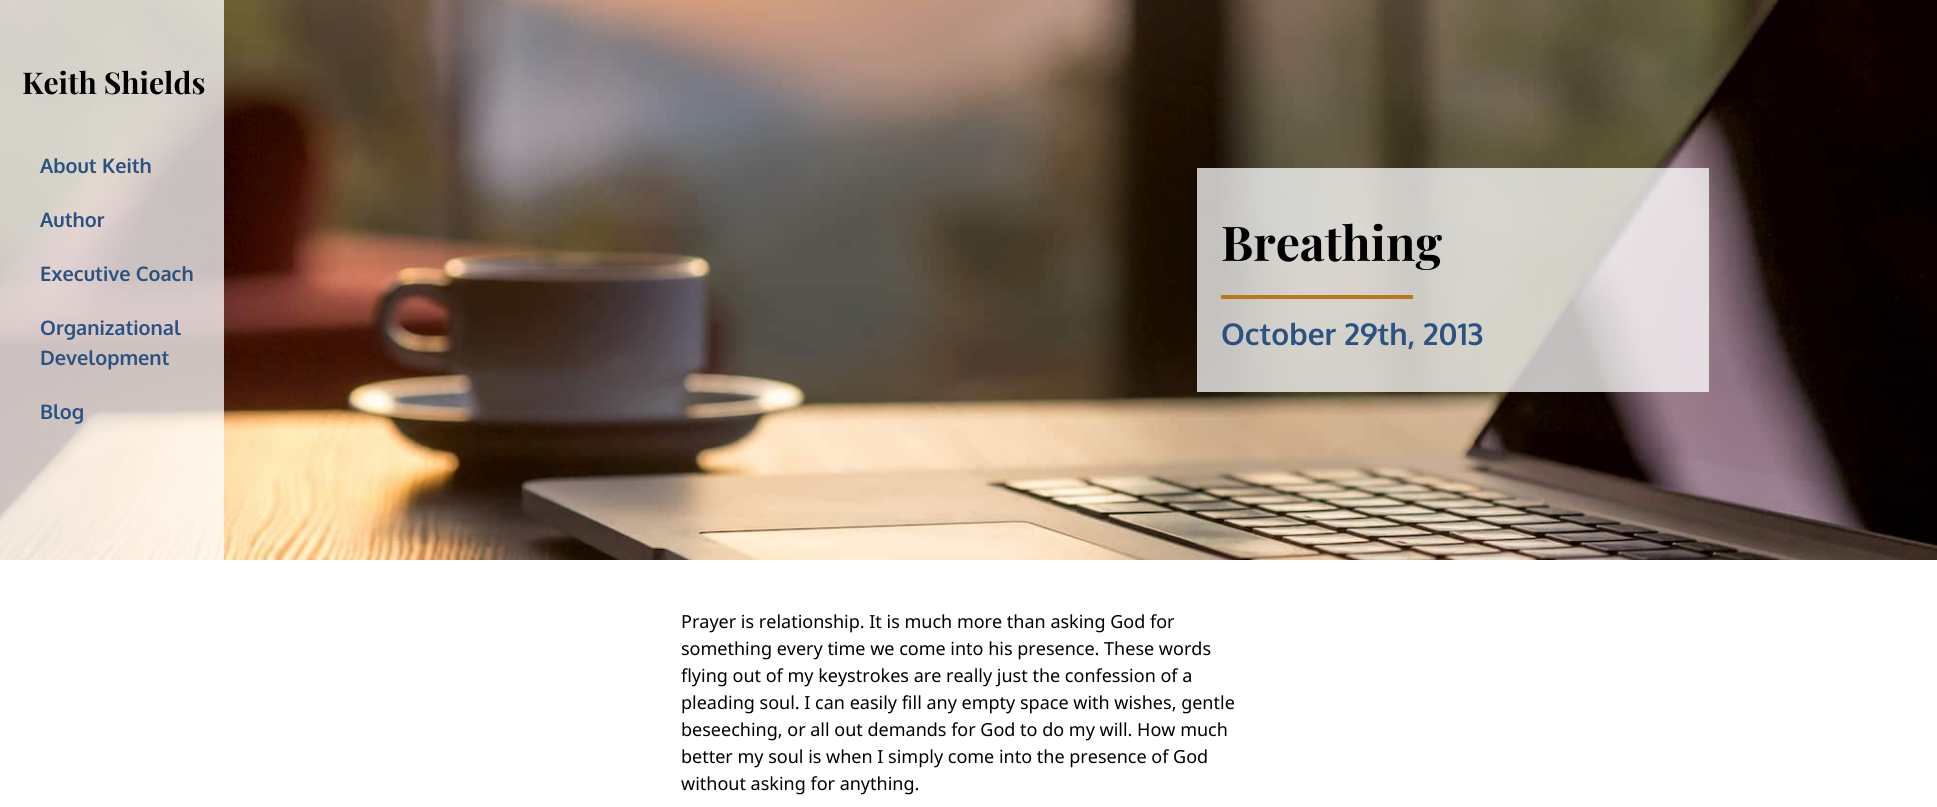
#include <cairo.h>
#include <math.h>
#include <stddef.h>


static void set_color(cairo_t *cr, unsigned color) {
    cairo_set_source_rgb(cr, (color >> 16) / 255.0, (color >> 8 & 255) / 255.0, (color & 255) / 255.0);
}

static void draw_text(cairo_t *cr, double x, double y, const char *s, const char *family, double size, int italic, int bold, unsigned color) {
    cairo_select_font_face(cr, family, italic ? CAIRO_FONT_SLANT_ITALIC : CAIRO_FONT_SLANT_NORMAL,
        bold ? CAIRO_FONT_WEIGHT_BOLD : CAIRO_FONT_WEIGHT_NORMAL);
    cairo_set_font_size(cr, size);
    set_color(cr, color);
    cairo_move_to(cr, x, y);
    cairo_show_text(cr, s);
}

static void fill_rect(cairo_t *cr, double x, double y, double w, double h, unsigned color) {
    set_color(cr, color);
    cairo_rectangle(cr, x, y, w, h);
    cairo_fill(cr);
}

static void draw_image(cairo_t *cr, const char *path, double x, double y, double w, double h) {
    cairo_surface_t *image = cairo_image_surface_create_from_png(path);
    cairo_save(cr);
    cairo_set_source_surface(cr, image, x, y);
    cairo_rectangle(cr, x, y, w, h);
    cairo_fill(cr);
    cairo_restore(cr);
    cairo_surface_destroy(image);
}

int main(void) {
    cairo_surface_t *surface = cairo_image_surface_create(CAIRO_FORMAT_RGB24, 1937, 807);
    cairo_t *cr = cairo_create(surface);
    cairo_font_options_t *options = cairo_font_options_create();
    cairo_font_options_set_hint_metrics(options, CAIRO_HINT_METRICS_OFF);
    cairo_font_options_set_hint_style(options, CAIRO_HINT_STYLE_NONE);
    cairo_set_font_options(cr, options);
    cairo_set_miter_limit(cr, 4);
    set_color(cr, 0xFFFFFF);
    cairo_paint(cr);
    draw_image(cr, "assets/img1.png", 0, 0, 1937, 560);
    cairo_set_source_rgba(cr, 1, 1, 1, 0.75);
    cairo_rectangle(cr, 0, 0, 224, 560);
    cairo_fill(cr);
    draw_text(cr, 22, 94, "Keith Shields", "Playfair Display", 30, 0, 1, 0x000000);
    draw_text(cr, 40, 173, "About Keith", "Oxygen", 20, 0, 1, 0x2C5282);
    draw_text(cr, 40, 227, "Author", "Oxygen", 20, 0, 1, 0x2C5282);
    draw_text(cr, 40, 281, "Executive Coach", "Oxygen", 20, 0, 1, 0x2C5282);
    draw_text(cr, 40, 335, "Organizational", "Oxygen", 20, 0, 1, 0x2C5282);
    draw_text(cr, 40, 365, "Development", "Oxygen", 20, 0, 1, 0x2C5282);
    draw_text(cr, 40, 419, "Blog", "Oxygen", 20, 0, 1, 0x2C5282);
    cairo_set_source_rgba(cr, 1, 1, 1, 0.75);
    cairo_rectangle(cr, 1197, 168, 512, 224);
    cairo_fill(cr);
    draw_text(cr, 1221, 261, "Breathing", "Playfair Display", 48, 0, 1, 0x000000);
    fill_rect(cr, 1221, 295, 192, 4, 0xB7791F);
    draw_text(cr, 1221, 345, "October 29th, 2013", "Oxygen", 30, 0, 1, 0x2C5282);
    draw_text(cr, 681, 628, "Prayer is relationship. It is much more than asking God for", "Noto Sans", 18, 0, 0, 0x000000);
    draw_text(cr, 681, 655, "something every time we come into his presence. These words", "Noto Sans", 18, 0, 0, 0x000000);
    draw_text(cr, 681, 682, "flying out of my keystrokes are really just the confession of a", "Noto Sans", 18, 0, 0, 0x000000);
    draw_text(cr, 681, 709, "pleading soul. I can easily fill any empty space with wishes, gentle", "Noto Sans", 18, 0, 0, 0x000000);
    draw_text(cr, 681, 736, "beseeching, or all out demands for God to do my will. How much", "Noto Sans", 18, 0, 0, 0x000000);
    draw_text(cr, 681, 763, "better my soul is when I simply come into the presence of God", "Noto Sans", 18, 0, 0, 0x000000);
    draw_text(cr, 681, 790, "without asking for anything.", "Noto Sans", 18, 0, 0, 0x000000);
    cairo_surface_write_to_png(surface, "output.png");
    cairo_font_options_destroy(options);
    cairo_destroy(cr);
    cairo_surface_destroy(surface);
    return 0;
}
